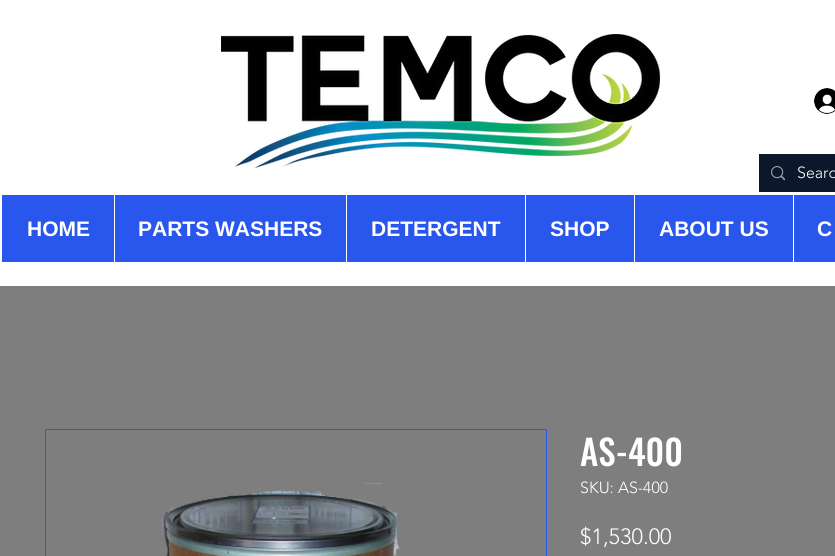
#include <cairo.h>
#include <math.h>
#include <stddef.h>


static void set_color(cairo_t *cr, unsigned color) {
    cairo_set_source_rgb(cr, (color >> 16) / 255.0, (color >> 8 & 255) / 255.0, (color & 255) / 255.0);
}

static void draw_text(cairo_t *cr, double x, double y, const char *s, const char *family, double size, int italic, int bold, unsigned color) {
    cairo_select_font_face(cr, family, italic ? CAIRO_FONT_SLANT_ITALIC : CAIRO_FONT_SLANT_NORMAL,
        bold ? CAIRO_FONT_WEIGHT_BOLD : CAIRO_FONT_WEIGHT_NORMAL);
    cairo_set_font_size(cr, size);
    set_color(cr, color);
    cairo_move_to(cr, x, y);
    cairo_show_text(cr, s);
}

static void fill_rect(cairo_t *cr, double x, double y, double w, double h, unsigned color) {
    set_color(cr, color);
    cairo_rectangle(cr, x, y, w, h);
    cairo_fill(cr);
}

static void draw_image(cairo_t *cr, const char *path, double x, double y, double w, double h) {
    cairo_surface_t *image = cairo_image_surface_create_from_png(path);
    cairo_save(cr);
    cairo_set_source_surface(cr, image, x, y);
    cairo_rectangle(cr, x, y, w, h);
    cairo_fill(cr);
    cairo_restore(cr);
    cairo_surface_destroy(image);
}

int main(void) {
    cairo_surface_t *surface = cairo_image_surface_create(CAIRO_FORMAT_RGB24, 835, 556);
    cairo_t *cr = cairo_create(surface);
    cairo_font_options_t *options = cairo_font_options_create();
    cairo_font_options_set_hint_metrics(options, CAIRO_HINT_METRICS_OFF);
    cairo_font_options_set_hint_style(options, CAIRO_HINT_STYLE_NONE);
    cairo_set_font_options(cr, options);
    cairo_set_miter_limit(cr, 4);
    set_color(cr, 0x7E7E7E);
    cairo_paint(cr);
    fill_rect(cr, 0, 0, 835, 286, 0xFFFFFF);
    draw_image(cr, "assets/img1.png", 221, 34, 439, 134);
    draw_image(cr, "assets/img2.png", 814, 88, 21, 26);
    fill_rect(cr, 759, 154, 76, 38, 0x0C172B);
    draw_image(cr, "assets/img3.png", 771, 166, 14, 15);
    draw_text(cr, 797, 178, "Searc", "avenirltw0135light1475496 Light", 16, 0, 0, 0xFFFFFF);
    fill_rect(cr, 2, 195, 833, 67, 0x2957ED);
    draw_text(cr, 27, 236, "HOME", "Liberation Sans", 21, 0, 1, 0xFFFFFF);
    fill_rect(cr, 114, 195, 1, 67, 0xFFFFFF);
    draw_text(cr, 138, 236, "PARTS WASHERS", "Liberation Sans", 21, 0, 1, 0xFFFFFF);
    fill_rect(cr, 346, 195, 1, 67, 0xFFFFFF);
    draw_text(cr, 371, 236, "DETERGENT", "Liberation Sans", 21, 0, 1, 0xFFFFFF);
    fill_rect(cr, 525, 195, 1, 67, 0xFFFFFF);
    draw_text(cr, 550, 236, "SHOP", "Liberation Sans", 21, 0, 1, 0xFFFFFF);
    fill_rect(cr, 634, 195, 1, 67, 0xFFFFFF);
    draw_text(cr, 659, 236, "ABOUT US", "Liberation Sans", 21, 0, 1, 0xFFFFFF);
    fill_rect(cr, 793, 195, 1, 67, 0xFFFFFF);
    draw_text(cr, 817, 236, "C", "Liberation Sans", 21, 0, 1, 0xFFFFFF);
    cairo_rectangle(cr, 45.5, 429.5, 501, 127);
    set_color(cr, 0x2957ED);
    cairo_set_line_width(cr, 1);
    cairo_stroke(cr);
    draw_image(cr, "assets/img4.png", 161, 483, 239, 73);
    draw_text(cr, 580, 466, "AS-400", "Oswald Medium", 35, 0, 0, 0xFFFFFF);
    draw_text(cr, 580, 493, "SKU: AS-400", "avenirltw0135light1475496 Light", 16, 0, 0, 0xFFFFFF);
    draw_text(cr, 580, 544, "$1,530.00", "avenirltw0135light1475496 Light", 22, 0, 0, 0xFFFFFF);
    cairo_surface_write_to_png(surface, "output.png");
    cairo_font_options_destroy(options);
    cairo_destroy(cr);
    cairo_surface_destroy(surface);
    return 0;
}
